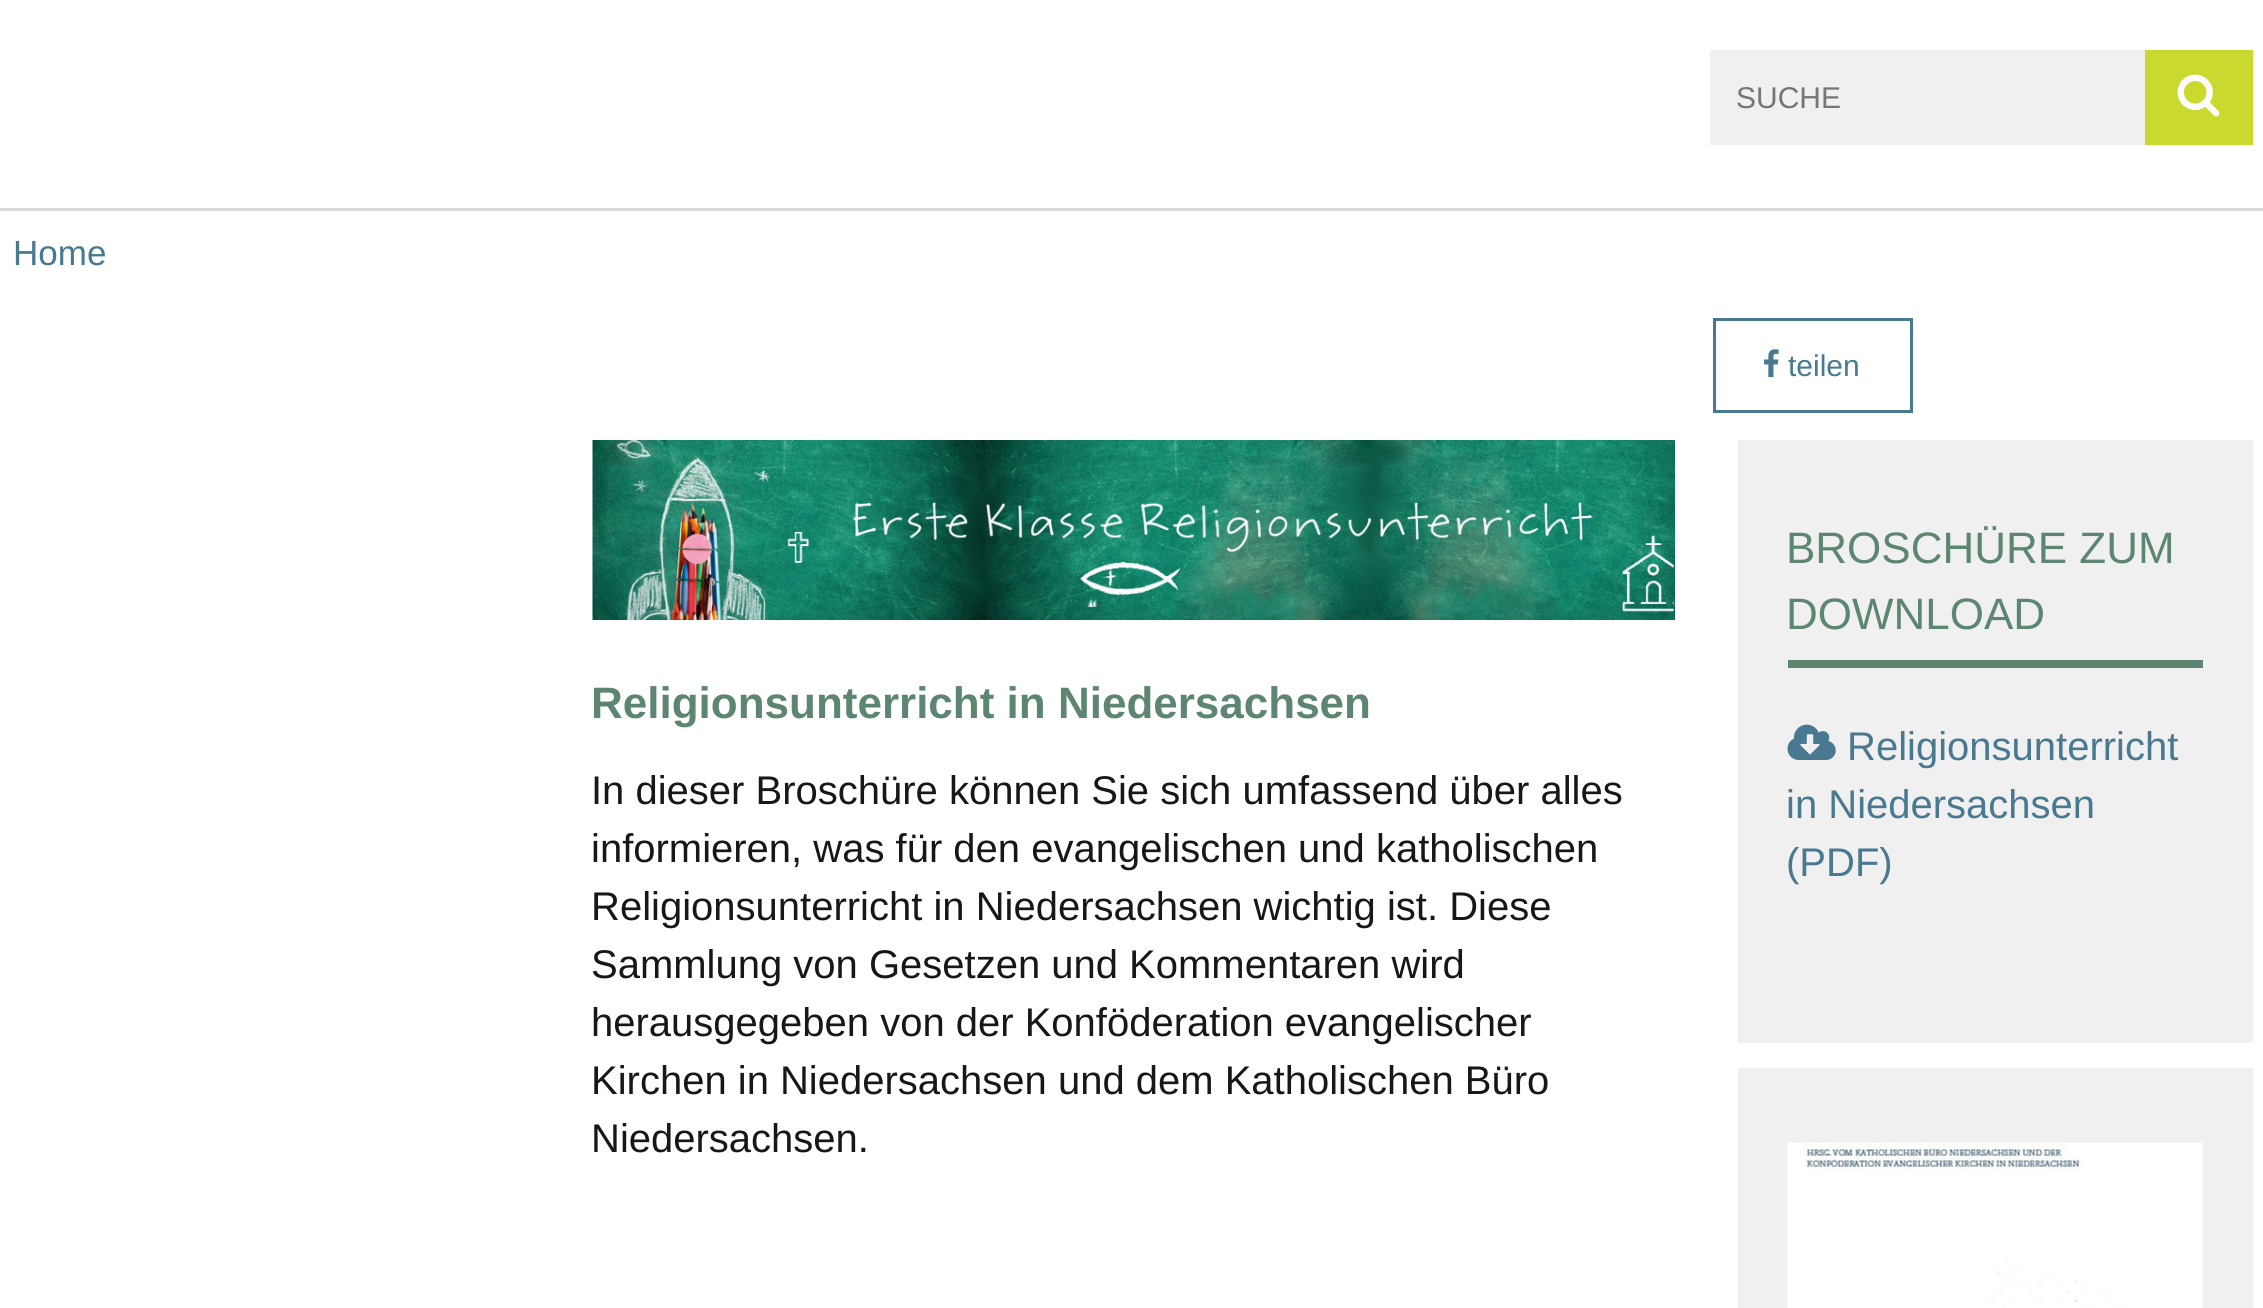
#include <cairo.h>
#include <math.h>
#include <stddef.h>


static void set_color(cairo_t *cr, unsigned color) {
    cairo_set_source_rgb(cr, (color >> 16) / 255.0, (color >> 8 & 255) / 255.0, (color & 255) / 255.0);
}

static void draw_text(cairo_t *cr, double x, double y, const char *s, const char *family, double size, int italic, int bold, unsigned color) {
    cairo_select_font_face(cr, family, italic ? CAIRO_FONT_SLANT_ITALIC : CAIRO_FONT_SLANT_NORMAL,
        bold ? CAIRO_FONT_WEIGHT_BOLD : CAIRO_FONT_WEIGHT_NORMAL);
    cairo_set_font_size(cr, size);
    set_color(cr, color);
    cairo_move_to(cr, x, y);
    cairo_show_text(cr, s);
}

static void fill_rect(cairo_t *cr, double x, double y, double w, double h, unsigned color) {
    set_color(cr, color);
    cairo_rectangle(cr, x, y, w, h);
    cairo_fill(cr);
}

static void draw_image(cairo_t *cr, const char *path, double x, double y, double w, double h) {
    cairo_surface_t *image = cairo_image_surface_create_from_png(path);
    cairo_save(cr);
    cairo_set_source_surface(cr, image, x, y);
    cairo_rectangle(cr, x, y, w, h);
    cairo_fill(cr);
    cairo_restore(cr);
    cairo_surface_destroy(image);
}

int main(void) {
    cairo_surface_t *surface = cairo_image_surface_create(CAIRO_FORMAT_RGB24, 2263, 1308);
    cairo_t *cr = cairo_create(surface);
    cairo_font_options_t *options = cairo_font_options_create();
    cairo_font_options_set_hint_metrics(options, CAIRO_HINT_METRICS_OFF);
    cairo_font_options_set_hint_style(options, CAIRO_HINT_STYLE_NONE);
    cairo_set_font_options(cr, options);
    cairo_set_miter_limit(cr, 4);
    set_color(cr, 0xFFFFFF);
    cairo_paint(cr);
    fill_rect(cr, 0, 208, 2263, 3, 0xD8D8D8);
    fill_rect(cr, 1710, 50, 435, 95, 0xF0F0F0);
    draw_text(cr, 1736, 108, "SUCHE", "Liberation Sans", 30, 0, 0, 0x757575);
    fill_rect(cr, 2145, 50, 108, 95, 0xC9D92F);
    draw_image(cr, "assets/img1.png", 2177, 74, 43, 43);
    draw_text(cr, 13, 265, "Home", "Liberation Sans", 35, 0, 0, 0x487990);
    cairo_rectangle(cr, 1714.5, 319.5, 197, 92);
    cairo_set_line_width(cr, 3);
    cairo_stroke(cr);
    draw_image(cr, "assets/img2.png", 1764, 349, 15, 29);
    draw_text(cr, 1788, 376, "teilen", "Liberation Sans", 30, 0, 0, 0x487990);
    draw_image(cr, "assets/img3.png", 592, 440, 1083, 180);
    draw_text(cr, 591, 718, "Religionsunterricht in Niedersachsen", "Liberation Sans", 44, 0, 1, 0x5C8670);
    draw_text(cr, 591, 804, "In dieser Broschüre können Sie sich umfassend über alles", "Liberation Sans", 40, 0, 0, 0x171717);
    draw_text(cr, 591, 862, "informieren, was für den evangelischen und katholischen", "Liberation Sans", 40, 0, 0, 0x171717);
    draw_text(cr, 591, 920, "Religionsunterricht in Niedersachsen wichtig ist. Diese", "Liberation Sans", 40, 0, 0, 0x171717);
    draw_text(cr, 591, 978, "Sammlung von Gesetzen und Kommentaren wird", "Liberation Sans", 40, 0, 0, 0x171717);
    draw_text(cr, 591, 1036, "herausgegeben von der Konföderation evangelischer", "Liberation Sans", 40, 0, 0, 0x171717);
    draw_text(cr, 591, 1094, "Kirchen in Niedersachsen und dem Katholischen Büro", "Liberation Sans", 40, 0, 0, 0x171717);
    draw_text(cr, 591, 1152, "Niedersachsen.", "Liberation Sans", 40, 0, 0, 0x171717);
    fill_rect(cr, 1738, 440, 515, 603, 0xF0F0F0);
    fill_rect(cr, 1788, 660, 415, 8, 0x5C8670);
    draw_text(cr, 1786, 563, "BROSCHÜRE ZUM", "Liberation Sans", 44, 0, 0, 0x5C8670);
    draw_text(cr, 1786, 629, "DOWNLOAD", "Liberation Sans", 44, 0, 0, 0x5C8670);
    draw_image(cr, "assets/img4.png", 1787, 724, 49, 36);
    draw_text(cr, 1847, 760, "Religionsunterricht", "Liberation Sans", 40, 0, 0, 0x487990);
    draw_text(cr, 1786, 818, "in Niedersachsen", "Liberation Sans", 40, 0, 0, 0x487990);
    draw_text(cr, 1786, 876, "(PDF)", "Liberation Sans", 40, 0, 0, 0x487990);
    fill_rect(cr, 1738, 1068, 515, 240, 0xF0F0F0);
    draw_image(cr, "assets/img5.png", 1787, 1142, 416, 166);
    cairo_surface_write_to_png(surface, "output.png");
    cairo_font_options_destroy(options);
    cairo_destroy(cr);
    cairo_surface_destroy(surface);
    return 0;
}
